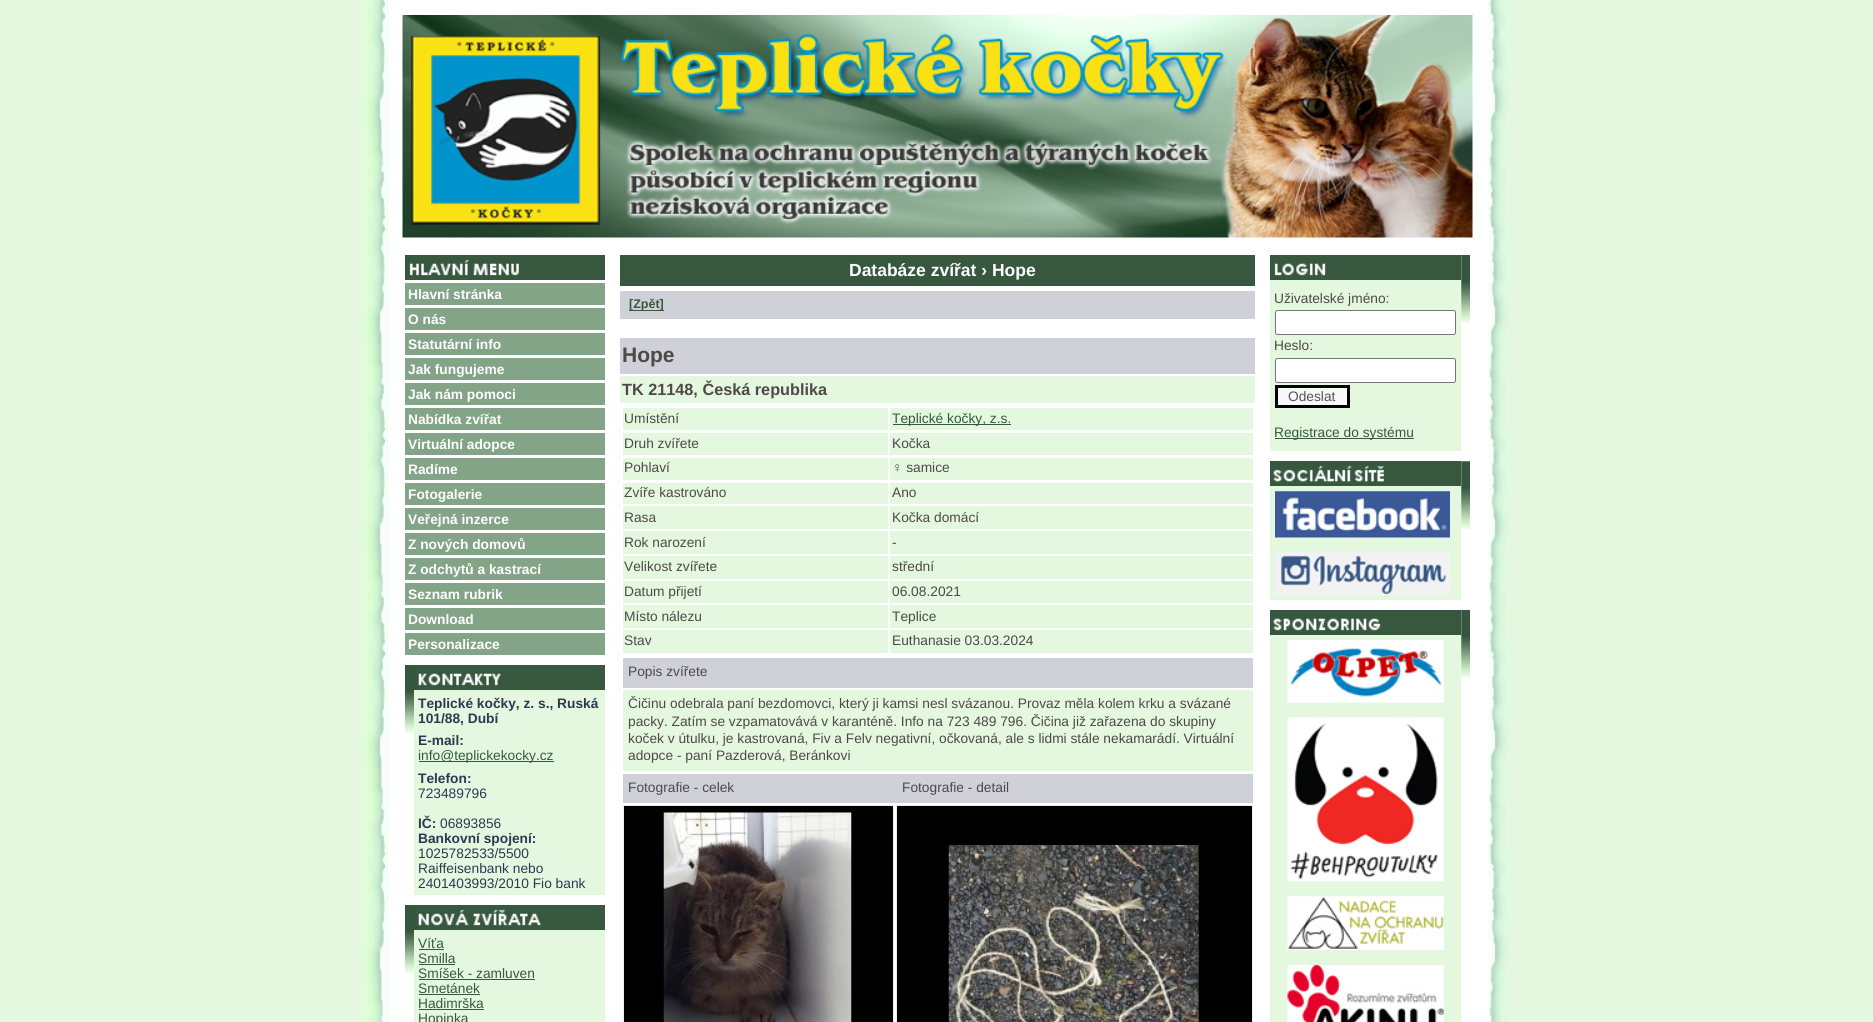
#include <cairo.h>
#include <math.h>
#include <stddef.h>


static void set_color(cairo_t *cr, unsigned color) {
    cairo_set_source_rgb(cr, (color >> 16) / 255.0, (color >> 8 & 255) / 255.0, (color & 255) / 255.0);
}

static void draw_text(cairo_t *cr, double x, double y, const char *s, const char *family, double size, int italic, int bold, unsigned color) {
    cairo_select_font_face(cr, family, italic ? CAIRO_FONT_SLANT_ITALIC : CAIRO_FONT_SLANT_NORMAL,
        bold ? CAIRO_FONT_WEIGHT_BOLD : CAIRO_FONT_WEIGHT_NORMAL);
    cairo_set_font_size(cr, size);
    set_color(cr, color);
    cairo_move_to(cr, x, y);
    cairo_show_text(cr, s);
}

static void fill_rect(cairo_t *cr, double x, double y, double w, double h, unsigned color) {
    set_color(cr, color);
    cairo_rectangle(cr, x, y, w, h);
    cairo_fill(cr);
}

static void rounded_rect(cairo_t *cr, double x, double y, double w, double h, double r) {
    cairo_new_sub_path(cr);
    cairo_arc(cr, x + w - r, y + h - r, r, 0, M_PI / 2);
    cairo_arc(cr, x + r, y + h - r, r, M_PI / 2, M_PI);
    cairo_arc(cr, x + r, y + r, r, M_PI, 1.5 * M_PI);
    cairo_arc(cr, x + w - r, y + r, r, 1.5 * M_PI, 2 * M_PI);
    cairo_close_path(cr);
}

static void draw_image(cairo_t *cr, const char *path, double x, double y, double w, double h) {
    cairo_surface_t *image = cairo_image_surface_create_from_png(path);
    cairo_save(cr);
    cairo_set_source_surface(cr, image, x, y);
    cairo_rectangle(cr, x, y, w, h);
    cairo_fill(cr);
    cairo_restore(cr);
    cairo_surface_destroy(image);
}

int main(void) {
    cairo_surface_t *surface = cairo_image_surface_create(CAIRO_FORMAT_RGB24, 1873, 1022);
    cairo_t *cr = cairo_create(surface);
    cairo_font_options_t *options = cairo_font_options_create();
    cairo_font_options_set_hint_metrics(options, CAIRO_HINT_METRICS_OFF);
    cairo_font_options_set_hint_style(options, CAIRO_HINT_STYLE_NONE);
    cairo_set_font_options(cr, options);
    cairo_set_miter_limit(cr, 4);
    set_color(cr, 0xE4F8E0);
    cairo_paint(cr);
    draw_image(cr, "assets/img1.png", 362, 0, 26, 1022);
    fill_rect(cr, 388, 0, 1100, 1022, 0xFFFFFF);
    draw_image(cr, "assets/img2.png", 402, 15, 1071, 223);
    fill_rect(cr, 405, 255, 200, 25, 0x37583F);
    draw_image(cr, "assets/img3.png", 409, 259, 110, 17);
    fill_rect(cr, 405, 283, 200, 22, 0x83A487);
    draw_text(cr, 408, 299, "Hlavní stránka", "Liberation Sans", 13.75, 0, 1, 0xFFFFFF);
    fill_rect(cr, 405, 308, 200, 22, 0x83A487);
    draw_text(cr, 408, 324, "O nás", "Liberation Sans", 13.75, 0, 1, 0xFFFFFF);
    fill_rect(cr, 405, 333, 200, 22, 0x83A487);
    draw_text(cr, 408, 349, "Statutární info", "Liberation Sans", 13.75, 0, 1, 0xFFFFFF);
    fill_rect(cr, 405, 358, 200, 22, 0x83A487);
    draw_text(cr, 408, 374, "Jak fungujeme", "Liberation Sans", 13.75, 0, 1, 0xFFFFFF);
    fill_rect(cr, 405, 383, 200, 22, 0x83A487);
    draw_text(cr, 408, 399, "Jak nám pomoci", "Liberation Sans", 13.75, 0, 1, 0xFFFFFF);
    fill_rect(cr, 405, 408, 200, 22, 0x83A487);
    draw_text(cr, 408, 424, "Nabídka zvířat", "Liberation Sans", 13.75, 0, 1, 0xFFFFFF);
    fill_rect(cr, 405, 433, 200, 22, 0x83A487);
    draw_text(cr, 408, 449, "Virtuální adopce", "Liberation Sans", 13.75, 0, 1, 0xFFFFFF);
    fill_rect(cr, 405, 458, 200, 22, 0x83A487);
    draw_text(cr, 408, 474, "Radíme", "Liberation Sans", 13.75, 0, 1, 0xFFFFFF);
    fill_rect(cr, 405, 483, 200, 22, 0x83A487);
    draw_text(cr, 408, 499, "Fotogalerie", "Liberation Sans", 13.75, 0, 1, 0xFFFFFF);
    fill_rect(cr, 405, 508, 200, 22, 0x83A487);
    draw_text(cr, 408, 524, "Veřejná inzerce", "Liberation Sans", 13.75, 0, 1, 0xFFFFFF);
    fill_rect(cr, 405, 533, 200, 22, 0x83A487);
    draw_text(cr, 408, 549, "Z nových domovů", "Liberation Sans", 13.75, 0, 1, 0xFFFFFF);
    fill_rect(cr, 405, 558, 200, 22, 0x83A487);
    draw_text(cr, 408, 574, "Z odchytů a kastrací", "Liberation Sans", 13.75, 0, 1, 0xFFFFFF);
    fill_rect(cr, 405, 583, 200, 22, 0x83A487);
    draw_text(cr, 408, 599, "Seznam rubrik", "Liberation Sans", 13.75, 0, 1, 0xFFFFFF);
    fill_rect(cr, 405, 608, 200, 22, 0x83A487);
    draw_text(cr, 408, 624, "Download", "Liberation Sans", 13.75, 0, 1, 0xFFFFFF);
    fill_rect(cr, 405, 633, 200, 22, 0x83A487);
    draw_text(cr, 408, 649, "Personalizace", "Liberation Sans", 13.75, 0, 1, 0xFFFFFF);
    draw_image(cr, "assets/img4.png", 405, 665, 9, 68);
    fill_rect(cr, 414, 665, 191, 25, 0x37583F);
    draw_image(cr, "assets/img5.png", 418, 673, 84, 13);
    fill_rect(cr, 414, 690, 191, 205, 0xE4F8E0);
    draw_text(cr, 418, 708, "Teplické kočky, z. s., Ruská", "Liberation Sans", 13.75, 0, 1, 0x2B3953);
    draw_text(cr, 418, 723, "101/88, Dubí", "Liberation Sans", 13.75, 0, 1, 0x2B3953);
    draw_text(cr, 418, 745, "E-mail:", "Liberation Sans", 13.75, 0, 1, 0x2B3953);
    fill_rect(cr, 419, 761, 135, 1, 0x37583F);
    draw_text(cr, 418, 760, "info@teplickekocky.cz", "Liberation Sans", 13.75, 0, 0, 0x37583F);
    draw_text(cr, 418, 783, "Telefon:", "Liberation Sans", 13.75, 0, 1, 0x2B3953);
    draw_text(cr, 418, 798, "723489796", "Liberation Sans", 13.75, 0, 0, 0x2B3953);
    draw_text(cr, 418, 828, "IČ:", "Liberation Sans", 13.75, 0, 1, 0x2B3953);
    draw_text(cr, 440, 828, "06893856", "Liberation Sans", 13.75, 0, 0, 0x2B3953);
    draw_text(cr, 418, 843, "Bankovní spojení:", "Liberation Sans", 13.75, 0, 1, 0x2B3953);
    draw_text(cr, 418, 858, "1025782533/5500", "Liberation Sans", 13.75, 0, 0, 0x2B3953);
    draw_text(cr, 418, 873, "Raiffeisenbank nebo", "Liberation Sans", 13.75, 0, 0, 0x2B3953);
    draw_text(cr, 418, 888, "2401403993/2010 Fio bank", "Liberation Sans", 13.75, 0, 0, 0x2B3953);
    draw_image(cr, "assets/img4.png", 405, 905, 9, 68);
    fill_rect(cr, 414, 905, 191, 25, 0x37583F);
    draw_image(cr, "assets/img6.png", 418, 909, 124, 17);
    fill_rect(cr, 414, 930, 191, 92, 0xE4F8E0);
    draw_text(cr, 418, 948, "Víťa", "Liberation Sans", 13.75, 0, 0, 0x37583F);
    fill_rect(cr, 419, 949, 25, 1, 0x37583F);
    draw_text(cr, 418, 963, "Smilla", "Liberation Sans", 13.75, 0, 0, 0x37583F);
    fill_rect(cr, 419, 964, 36, 1, 0x37583F);
    draw_text(cr, 418, 978, "Smíšek - zamluven", "Liberation Sans", 13.75, 0, 0, 0x37583F);
    fill_rect(cr, 419, 979, 116, 1, 0x37583F);
    draw_text(cr, 418, 993, "Smetánek", "Liberation Sans", 13.75, 0, 0, 0x37583F);
    fill_rect(cr, 419, 994, 61, 1, 0x37583F);
    draw_text(cr, 418, 1008, "Hadimrška", "Liberation Sans", 13.75, 0, 0, 0x37583F);
    fill_rect(cr, 419, 1009, 65, 1, 0x37583F);
    draw_text(cr, 418, 1023, "Hopinka", "Liberation Sans", 13.75, 0, 0, 0x37583F);
    fill_rect(cr, 620, 255, 635, 31, 0x37583F);
    draw_text(cr, 849, 276, "Databáze zvířat › Hope", "Liberation Sans", 17.5, 0, 1, 0xFFFFFF);
    fill_rect(cr, 620, 291, 635, 28, 0xD0D0D8);
    fill_rect(cr, 629, 310, 35, 1, 0x37583F);
    draw_text(cr, 629, 308, "[Zpět]", "Liberation Sans", 12.5, 0, 1, 0x37583F);
    fill_rect(cr, 620, 338, 635, 36, 0xD0D0D8);
    draw_text(cr, 622, 362, "Hope", "Liberation Sans", 21, 0, 1, 0x4D4948);
    fill_rect(cr, 620, 376, 635, 27, 0xE4F8E0);
    draw_text(cr, 622, 395, "TK 21148, Česká republika", "Liberation Sans", 16.25, 0, 1, 0x4D4948);
    fill_rect(cr, 623, 408, 265, 22, 0xE4F8E0);
    draw_text(cr, 624, 423, "Umístění", "Liberation Sans", 13.75, 0, 0, 0x4D4948);
    fill_rect(cr, 890, 408, 363, 22, 0xE4F8E0);
    fill_rect(cr, 893, 424, 118, 1, 0x37583F);
    draw_text(cr, 892, 423, "Teplické kočky, z.s.", "Liberation Sans", 13.75, 0, 0, 0x37583F);
    fill_rect(cr, 623, 433, 265, 22, 0xE4F8E0);
    draw_text(cr, 624, 448, "Druh zvířete", "Liberation Sans", 13.75, 0, 0, 0x4D4948);
    fill_rect(cr, 890, 433, 363, 22, 0xE4F8E0);
    draw_text(cr, 892, 448, "Kočka", "Liberation Sans", 13.75, 0, 0, 0x4D4948);
    fill_rect(cr, 623, 458, 265, 22, 0xE4F8E0);
    draw_text(cr, 624, 472, "Pohlaví", "Liberation Sans", 13.75, 0, 0, 0x4D4948);
    fill_rect(cr, 890, 458, 363, 22, 0xE4F8E0);
    draw_text(cr, 892, 472, "♀ samice", "Liberation Sans", 13.75, 0, 0, 0x4D4948);
    fill_rect(cr, 623, 483, 265, 21, 0xE4F8E0);
    draw_text(cr, 624, 497, "Zvíře kastrováno", "Liberation Sans", 13.75, 0, 0, 0x4D4948);
    fill_rect(cr, 890, 483, 363, 21, 0xE4F8E0);
    draw_text(cr, 892, 497, "Ano", "Liberation Sans", 13.75, 0, 0, 0x4D4948);
    fill_rect(cr, 623, 506, 265, 23, 0xE4F8E0);
    draw_text(cr, 624, 522, "Rasa", "Liberation Sans", 13.75, 0, 0, 0x4D4948);
    fill_rect(cr, 890, 506, 363, 23, 0xE4F8E0);
    draw_text(cr, 892, 522, "Kočka domácí", "Liberation Sans", 13.75, 0, 0, 0x4D4948);
    fill_rect(cr, 623, 531, 265, 23, 0xE4F8E0);
    draw_text(cr, 624, 547, "Rok narození", "Liberation Sans", 13.75, 0, 0, 0x4D4948);
    fill_rect(cr, 890, 531, 363, 23, 0xE4F8E0);
    draw_text(cr, 892, 547, "-", "Liberation Sans", 13.75, 0, 0, 0x4D4948);
    fill_rect(cr, 623, 556, 265, 23, 0xE4F8E0);
    draw_text(cr, 624, 571, "Velikost zvířete", "Liberation Sans", 13.75, 0, 0, 0x4D4948);
    fill_rect(cr, 890, 556, 363, 23, 0xE4F8E0);
    draw_text(cr, 892, 571, "střední", "Liberation Sans", 13.75, 0, 0, 0x4D4948);
    fill_rect(cr, 623, 581, 265, 22, 0xE4F8E0);
    draw_text(cr, 624, 596, "Datum přijetí", "Liberation Sans", 13.75, 0, 0, 0x4D4948);
    fill_rect(cr, 890, 581, 363, 22, 0xE4F8E0);
    draw_text(cr, 892, 596, "06.08.2021", "Liberation Sans", 13.75, 0, 0, 0x4D4948);
    fill_rect(cr, 623, 605, 265, 23, 0xE4F8E0);
    draw_text(cr, 624, 621, "Místo nálezu", "Liberation Sans", 13.75, 0, 0, 0x4D4948);
    fill_rect(cr, 890, 605, 363, 23, 0xE4F8E0);
    draw_text(cr, 892, 621, "Teplice", "Liberation Sans", 13.75, 0, 0, 0x4D4948);
    fill_rect(cr, 623, 630, 265, 23, 0xE4F8E0);
    draw_text(cr, 624, 645, "Stav", "Liberation Sans", 13.75, 0, 0, 0x4D4948);
    fill_rect(cr, 890, 630, 363, 23, 0xE4F8E0);
    draw_text(cr, 892, 645, "Euthanasie 03.03.2024", "Liberation Sans", 13.75, 0, 0, 0x4D4948);
    fill_rect(cr, 623, 658, 630, 30, 0xD0D0D8);
    draw_text(cr, 628, 676, "Popis zvířete", "Liberation Sans", 13.75, 0, 0, 0x4D4948);
    fill_rect(cr, 623, 690, 630, 81, 0xE4F8E0);
    draw_text(cr, 628, 708, "Čičinu odebrala paní bezdomovci, který ji kamsi nesl svázanou. Provaz měla kolem krku a svázané", "Liberation Sans", 13.75, 0, 0, 0x4D4948);
    draw_text(cr, 628, 726, "packy. Zatím se vzpamatovává v karanténě. Info na 723 489 796. Čičina již zařazena do skupiny", "Liberation Sans", 13.75, 0, 0, 0x4D4948);
    draw_text(cr, 628, 743, "koček v útulku, je kastrovaná, Fiv a Felv negativní, očkovaná, ale s lidmi stále nekamarádí. Virtuální", "Liberation Sans", 13.75, 0, 0, 0x4D4948);
    draw_text(cr, 628, 760, "adopce - paní Pazderová, Beránkovi", "Liberation Sans", 13.75, 0, 0, 0x4D4948);
    fill_rect(cr, 623, 774, 630, 29, 0xD0D0D8);
    draw_text(cr, 628, 792, "Fotografie - celek", "Liberation Sans", 13.75, 0, 0, 0x4D4948);
    draw_text(cr, 902, 792, "Fotografie - detail", "Liberation Sans", 13.75, 0, 0, 0x4D4948);
    set_color(cr, 0x000000);
    cairo_rectangle(cr, 623.5, 805.5, 270, 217);
    cairo_fill_preserve(cr);
    set_color(cr, 0xEEEEEE);
    cairo_set_line_width(cr, 1);
    cairo_stroke(cr);
    draw_image(cr, "assets/img7.png", 663, 812, 189, 210);
    set_color(cr, 0x000000);
    cairo_rectangle(cr, 896.5, 805.5, 356, 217);
    cairo_fill_preserve(cr);
    set_color(cr, 0xEEEEEE);
    cairo_stroke(cr);
    draw_image(cr, "assets/img8.png", 948, 845, 251, 177);
    draw_image(cr, "assets/img9.png", 1461, 255, 9, 68);
    fill_rect(cr, 1270, 255, 191, 25, 0x37583F);
    draw_image(cr, "assets/img10.png", 1274, 263, 52, 13);
    fill_rect(cr, 1270, 280, 191, 171, 0xE4F8E0);
    draw_text(cr, 1274, 303, "Uživatelské jméno:", "Liberation Sans", 13.75, 0, 0, 0x4D4948);
    set_color(cr, 0xFFFFFF);
    rounded_rect(cr, 1275.5, 310.5, 180, 24, 2);
    cairo_fill_preserve(cr);
    set_color(cr, 0x767676);
    cairo_stroke(cr);
    draw_text(cr, 1274, 350, "Heslo:", "Liberation Sans", 13.75, 0, 0, 0x4D4948);
    set_color(cr, 0xFFFFFF);
    rounded_rect(cr, 1275.5, 358.5, 180, 24, 2);
    cairo_fill_preserve(cr);
    set_color(cr, 0x767676);
    cairo_stroke(cr);
    set_color(cr, 0xF8F8F8);
    cairo_rectangle(cr, 1276.5, 386.5, 72, 20);
    cairo_fill_preserve(cr);
    set_color(cr, 0x000000);
    cairo_set_line_width(cr, 3);
    cairo_stroke(cr);
    draw_text(cr, 1288, 401, "Odeslat", "Liberation Sans", 13.75, 0, 0, 0x555555);
    fill_rect(cr, 1275, 438, 139, 1, 0x37583F);
    draw_text(cr, 1274, 437, "Registrace do systému", "Liberation Sans", 13.75, 0, 0, 0x37583F);
    draw_image(cr, "assets/img11.png", 1461, 461, 9, 68);
    fill_rect(cr, 1270, 461, 191, 25, 0x37583F);
    draw_image(cr, "assets/img12.png", 1273, 466, 111, 16);
    fill_rect(cr, 1270, 486, 191, 114, 0xE4F8E0);
    draw_image(cr, "assets/img13.png", 1275, 491, 175, 47);
    draw_image(cr, "assets/img14.png", 1275, 551, 175, 44);
    draw_image(cr, "assets/img9.png", 1461, 610, 9, 68);
    fill_rect(cr, 1270, 610, 191, 25, 0x37583F);
    draw_image(cr, "assets/img15.png", 1273, 618, 108, 13);
    fill_rect(cr, 1270, 635, 191, 387, 0xE4F8E0);
    draw_image(cr, "assets/img16.png", 1287, 640, 157, 63);
    draw_image(cr, "assets/img17.png", 1287, 717, 157, 165);
    draw_image(cr, "assets/img18.png", 1287, 896, 157, 54);
    draw_image(cr, "assets/img19.png", 1287, 965, 157, 57);
    draw_image(cr, "assets/img20.png", 1488, 0, 22, 1022);
    cairo_surface_write_to_png(surface, "output.png");
    cairo_font_options_destroy(options);
    cairo_destroy(cr);
    cairo_surface_destroy(surface);
    return 0;
}
